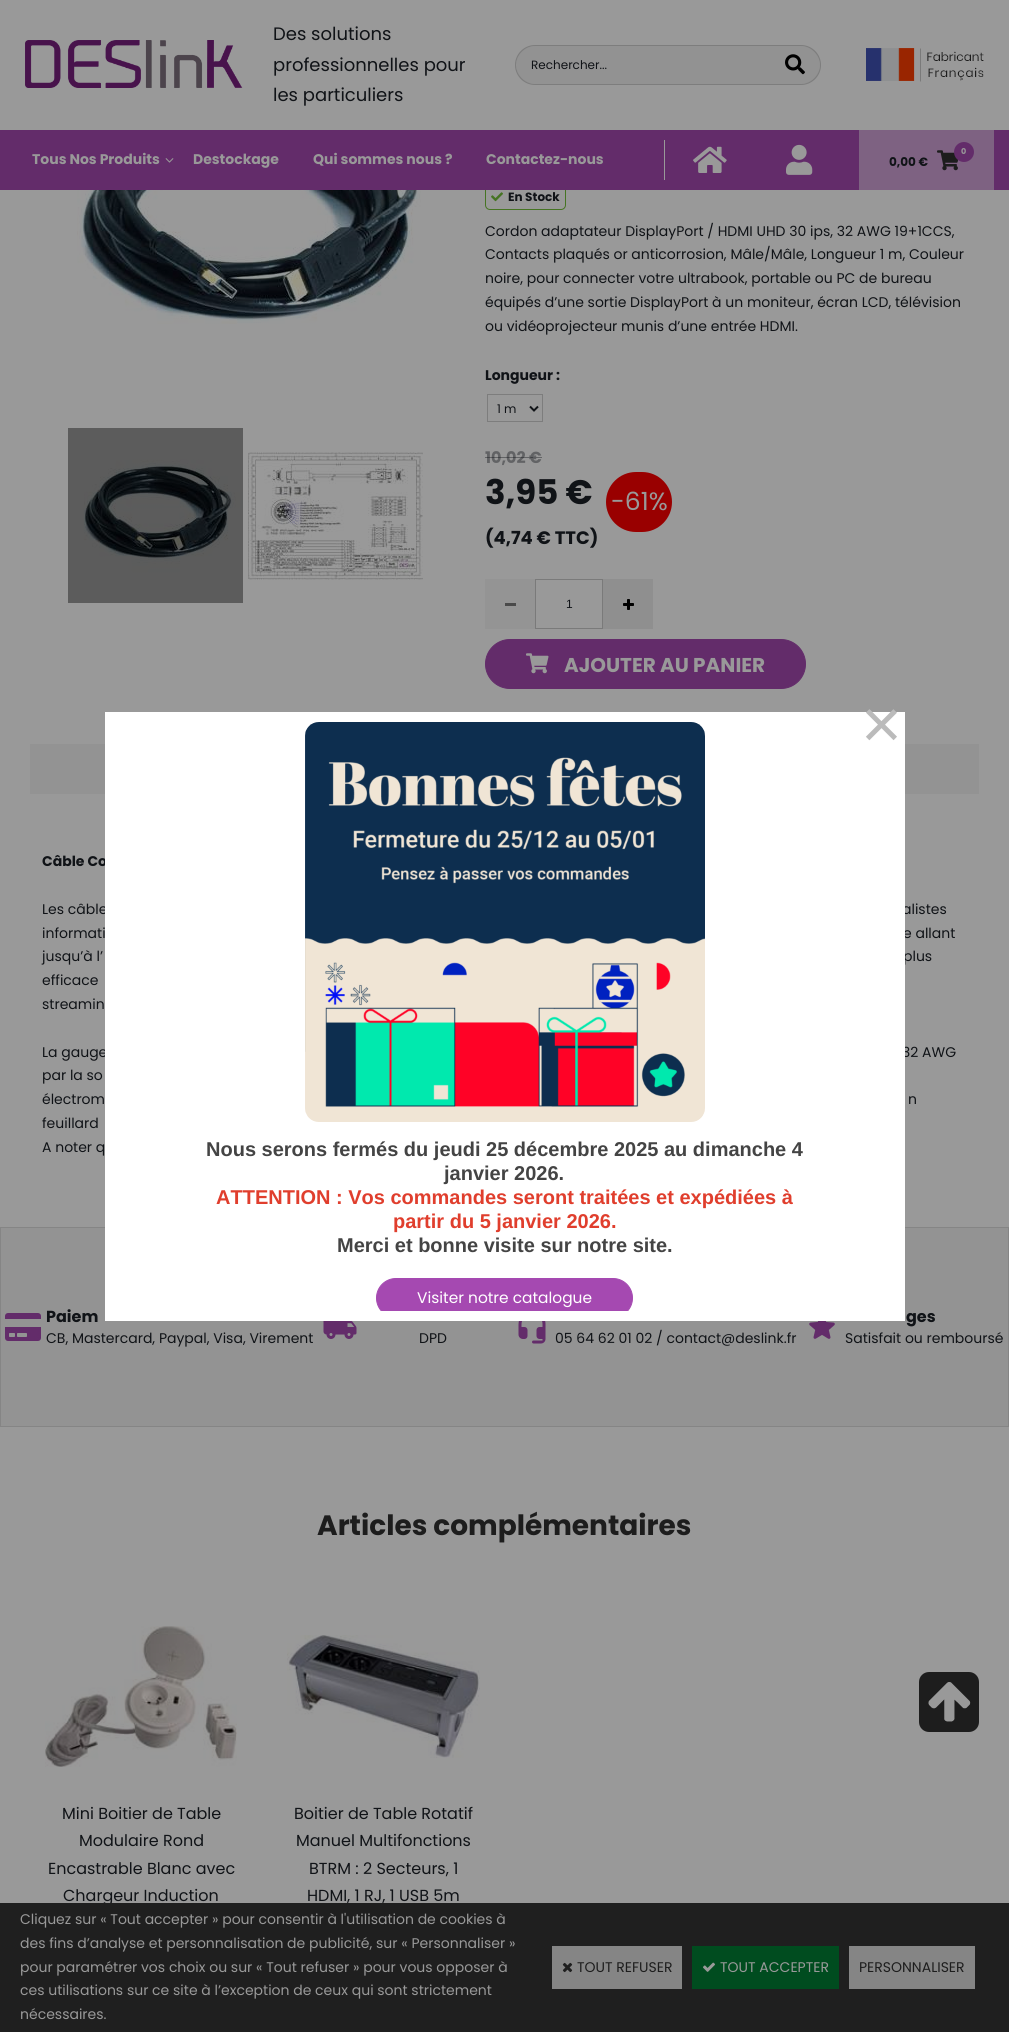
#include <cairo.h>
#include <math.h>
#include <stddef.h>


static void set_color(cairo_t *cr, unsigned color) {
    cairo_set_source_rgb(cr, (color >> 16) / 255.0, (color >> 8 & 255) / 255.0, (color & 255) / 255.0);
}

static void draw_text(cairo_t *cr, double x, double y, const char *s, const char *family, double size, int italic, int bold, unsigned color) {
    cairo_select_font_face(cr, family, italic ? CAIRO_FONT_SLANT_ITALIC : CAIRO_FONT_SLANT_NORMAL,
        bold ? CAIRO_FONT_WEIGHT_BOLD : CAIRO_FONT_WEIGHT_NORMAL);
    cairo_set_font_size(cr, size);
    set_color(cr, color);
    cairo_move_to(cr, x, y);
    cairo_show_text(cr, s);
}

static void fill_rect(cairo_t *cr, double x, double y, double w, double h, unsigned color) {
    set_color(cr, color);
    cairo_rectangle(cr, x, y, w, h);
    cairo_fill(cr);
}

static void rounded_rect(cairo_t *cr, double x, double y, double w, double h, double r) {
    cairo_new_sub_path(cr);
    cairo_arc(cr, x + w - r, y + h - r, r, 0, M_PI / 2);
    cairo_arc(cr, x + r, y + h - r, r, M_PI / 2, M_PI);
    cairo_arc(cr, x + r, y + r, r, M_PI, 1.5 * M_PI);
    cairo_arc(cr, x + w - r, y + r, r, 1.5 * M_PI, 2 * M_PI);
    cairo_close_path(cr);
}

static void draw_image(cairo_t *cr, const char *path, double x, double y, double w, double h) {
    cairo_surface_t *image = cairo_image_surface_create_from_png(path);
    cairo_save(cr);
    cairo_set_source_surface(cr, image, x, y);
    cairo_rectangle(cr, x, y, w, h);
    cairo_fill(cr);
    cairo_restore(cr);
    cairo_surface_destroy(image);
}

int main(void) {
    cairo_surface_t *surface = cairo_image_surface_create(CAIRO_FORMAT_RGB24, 1009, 2032);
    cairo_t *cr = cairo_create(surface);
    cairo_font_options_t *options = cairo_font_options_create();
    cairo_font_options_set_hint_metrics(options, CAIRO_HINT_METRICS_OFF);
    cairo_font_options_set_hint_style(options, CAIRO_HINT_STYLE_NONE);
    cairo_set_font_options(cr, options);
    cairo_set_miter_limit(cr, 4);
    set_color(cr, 0x999999);
    cairo_paint(cr);
    draw_image(cr, "assets/img1.png", 25, 40, 218, 48);
    draw_text(cr, 273, 40, "Des solutions", "Poppins", 18, 0, 0, 0x101317);
    draw_text(cr, 273, 71, "professionnelles pour", "Poppins", 18, 0, 0, 0x101317);
    draw_text(cr, 273, 101, "les particuliers", "Poppins", 18, 0, 0, 0x101317);
    set_color(cr, 0x929292);
    cairo_new_path(cr);
    cairo_move_to(cr, 535, 46);
    cairo_line_to(cr, 770, 46);
    cairo_line_to(cr, 770, 84);
    cairo_line_to(cr, 535, 84);
    cairo_curve_to(cr, 524.5, 84, 516, 75.5, 516, 65);
    cairo_curve_to(cr, 516, 54.5, 524.5, 46, 535, 46);
    cairo_close_path(cr);
    cairo_fill(cr);
    set_color(cr, 0x7D7D7D);
    cairo_set_fill_rule(cr, CAIRO_FILL_RULE_EVEN_ODD);
    cairo_new_path(cr);
    cairo_move_to(cr, 535, 45);
    cairo_line_to(cr, 770, 45);
    cairo_line_to(cr, 770, 85);
    cairo_line_to(cr, 535, 85);
    cairo_curve_to(cr, 524, 85, 515, 76, 515, 65);
    cairo_curve_to(cr, 515, 54, 524, 45, 535, 45);
    cairo_close_path(cr);
    cairo_move_to(cr, 535, 46);
    cairo_line_to(cr, 770, 46);
    cairo_line_to(cr, 770, 84);
    cairo_line_to(cr, 535, 84);
    cairo_curve_to(cr, 525, 84, 516, 75, 516, 65);
    cairo_curve_to(cr, 516, 55, 525, 46, 535, 46);
    cairo_close_path(cr);
    cairo_fill(cr);
    draw_text(cr, 531, 69, "Rechercher...", "Poppins", 12, 0, 0, 0x101317);
    set_color(cr, 0x929292);
    cairo_new_path(cr);
    cairo_move_to(cr, 770, 46);
    cairo_line_to(cr, 801, 46);
    cairo_curve_to(cr, 811.5, 46, 820, 54.5, 820, 65);
    cairo_curve_to(cr, 820, 75.5, 811.5, 84, 801, 84);
    cairo_line_to(cr, 770, 84);
    cairo_close_path(cr);
    cairo_fill(cr);
    set_color(cr, 0x7D7D7D);
    cairo_new_path(cr);
    cairo_move_to(cr, 770, 45);
    cairo_line_to(cr, 801, 45);
    cairo_curve_to(cr, 812, 45, 821, 54, 821, 65);
    cairo_curve_to(cr, 821, 76, 812, 85, 801, 85);
    cairo_line_to(cr, 770, 85);
    cairo_close_path(cr);
    cairo_move_to(cr, 770, 46);
    cairo_line_to(cr, 801, 46);
    cairo_curve_to(cr, 811, 46, 820, 55, 820, 65);
    cairo_curve_to(cr, 820, 75, 811, 84, 801, 84);
    cairo_line_to(cr, 770, 84);
    cairo_close_path(cr);
    cairo_fill(cr);
    draw_image(cr, "assets/img2.png", 785, 54, 20, 21);
    draw_image(cr, "assets/img3.png", 866, 48, 118, 34);
    rounded_rect(cr, 485.5, 184.5, 80, 25, 4.5);
    set_color(cr, 0x467423);
    cairo_set_line_width(cr, 1);
    cairo_stroke(cr);
    fill_rect(cr, 0, 130, 1009, 60, 0x632C6A);
    fill_rect(cr, 664, 140, 1, 40, 0x999999);
    draw_image(cr, "assets/img4.png", 693, 146, 34, 27);
    draw_image(cr, "assets/img5.png", 786, 144, 27, 31);
    fill_rect(cr, 859, 130, 135, 60, 0x7E6282);
    draw_image(cr, "assets/img6.png", 937, 150, 21, 21);
    set_color(cr, 0x632C6A);
    cairo_arc(cr, 964, 152, 10, 0, 2 * M_PI);
    cairo_fill(cr);
    draw_text(cr, 961, 154, "0", "Poppins", 8, 0, 1, 0x999999);
    draw_text(cr, 889, 166, "0,00 €", "Poppins", 12, 0, 1, 0x101317);
    draw_text(cr, 32, 164, "Tous Nos Produits", "Poppins", 14, 0, 1, 0x999999);
    draw_image(cr, "assets/img7.png", 165, 158, 9, 5);
    draw_text(cr, 193, 164, "Destockage", "Poppins", 14, 0, 1, 0x999999);
    draw_text(cr, 313, 164, "Qui sommes nous ?", "Poppins", 14, 0, 1, 0x999999);
    draw_text(cr, 486, 164, "Contactez-nous", "Poppins", 14, 0, 1, 0x999999);
    draw_image(cr, "assets/img8.png", 77, 190, 344, 134);
    draw_image(cr, "assets/img9.png", 68, 428, 175, 175);
    draw_image(cr, "assets/img10.png", 248, 452, 175, 128);
    draw_image(cr, "assets/img11.png", 491, 192, 12, 10);
    draw_text(cr, 508, 201, "En Stock", "Poppins", 12, 0, 1, 0x101317);
    draw_text(cr, 485, 236, "Cordon adaptateur DisplayPort / HDMI UHD 30 ips, 32 AWG 19+1CCS,", "Poppins", 14, 0, 0, 0x101317);
    draw_text(cr, 485, 259, "Contacts plaqués or anticorrosion, Mâle/Mâle, Longueur 1 m, Couleur", "Poppins", 14, 0, 0, 0x101317);
    draw_text(cr, 485, 283, "noire, pour connecter votre ultrabook, portable ou PC de bureau", "Poppins", 14, 0, 0, 0x101317);
    draw_text(cr, 485, 307, "équipés d’une sortie DisplayPort à un moniteur, écran LCD, télévision", "Poppins", 14, 0, 0, 0x101317);
    draw_text(cr, 485, 331, "ou vidéoprojecteur munis d’une entrée HDMI.", "Poppins", 14, 0, 0, 0x101317);
    draw_text(cr, 485, 380, "Longueur :", "Poppins", 14, 0, 1, 0x101317);
    cairo_rectangle(cr, 487.5, 394.5, 55, 27);
    set_color(cr, 0x7D7D7D);
    cairo_stroke(cr);
    cairo_new_path(cr);
    cairo_move_to(cr, 530, 406.5);
    cairo_line_to(cr, 534, 410.5);
    cairo_line_to(cr, 538, 406.5);
    set_color(cr, 0x101317);
    cairo_set_line_width(cr, 2);
    cairo_stroke(cr);
    draw_text(cr, 497, 413, "1 m", "Poppins", 12, 0, 0, 0x101317);
    draw_text(cr, 485, 463, "10,02 €", "Poppins", 16, 0, 1, 0x626365);
    cairo_set_source_rgba(cr, 0.063, 0.075, 0.09, 0.4);
    cairo_rectangle(cr, 485, 457, 57, 1);
    cairo_fill(cr);
    draw_text(cr, 485, 504, "3,95 €", "Poppins", 34, 0, 1, 0x101317);
    draw_text(cr, 485, 544, "(4,74 € TTC)", "Poppins", 18, 0, 1, 0x101317);
    set_color(cr, 0x990000);
    rounded_rect(cr, 606, 472, 66, 60, 30);
    cairo_fill(cr);
    draw_text(cr, 611, 510, "-61%", "Poppins", 25, 0, 0, 0x999999);
    fill_rect(cr, 485, 579, 50, 50, 0x949494);
    fill_rect(cr, 505, 603, 11, 3, 0x4A4A4A);
    cairo_rectangle(cr, 535.5, 579.5, 67, 49);
    set_color(cr, 0x7A7A7A);
    cairo_set_line_width(cr, 1);
    cairo_stroke(cr);
    draw_text(cr, 566, 608, "1", "Liberation Sans", 12, 0, 0, 0x101317);
    fill_rect(cr, 603, 579, 50, 50, 0x8F8F8F);
    draw_image(cr, "assets/img12.png", 623, 599, 11, 11);
    set_color(cr, 0x632C6A);
    rounded_rect(cr, 485.5, 639.5, 320, 49, 24.5);
    cairo_fill_preserve(cr);
    cairo_stroke(cr);
    draw_image(cr, "assets/img13.png", 526, 653, 23, 21);
    draw_text(cr, 564, 672, "AJOUTER AU PANIER", "Poppins", 20, 0, 1, 0x999999);
    fill_rect(cr, 30, 744, 949, 50, 0x939393);
    draw_text(cr, 42, 866, "Câble Co", "Poppins", 14, 0, 1, 0x101317);
    draw_text(cr, 42, 914, "Les câble", "Poppins", 14, 0, 0, 0x101317);
    draw_text(cr, 902, 914, "alistes", "Poppins", 14, 0, 0, 0x101317);
    draw_text(cr, 42, 938, "informati", "Poppins", 14, 0, 0, 0x101317);
    draw_text(cr, 903, 938, "e allant", "Poppins", 14, 0, 0, 0x101317);
    draw_text(cr, 42, 961, "jusqu’à l’", "Poppins", 14, 0, 0, 0x101317);
    draw_text(cr, 903, 961, "plus", "Poppins", 14, 0, 0, 0x101317);
    draw_text(cr, 42, 985, "efficace", "Poppins", 14, 0, 0, 0x101317);
    draw_text(cr, 42, 1009, "streamin", "Poppins", 14, 0, 0, 0x101317);
    draw_text(cr, 42, 1057, "La gauge", "Poppins", 14, 0, 0, 0x101317);
    draw_text(cr, 902, 1057, "32 AWG", "Poppins", 14, 0, 0, 0x101317);
    draw_text(cr, 42, 1080, "par la so", "Poppins", 14, 0, 0, 0x101317);
    draw_text(cr, 42, 1104, "électrom", "Poppins", 14, 0, 0, 0x101317);
    draw_text(cr, 908, 1104, "n", "Poppins", 14, 0, 0, 0x101317);
    draw_text(cr, 42, 1128, "feuillard", "Poppins", 14, 0, 0, 0x101317);
    draw_text(cr, 42, 1152, "A noter q", "Poppins", 14, 0, 0, 0x101317);
    set_color(cr, 0x939393);
    cairo_rectangle(cr, 0.5, 1227.5, 1008, 199);
    cairo_fill_preserve(cr);
    set_color(cr, 0x858585);
    cairo_stroke(cr);
    draw_image(cr, "assets/img14.png", 5, 1313, 36, 28);
    draw_text(cr, 46, 1322, "Paiem", "Poppins", 16, 0, 1, 0x101317);
    draw_text(cr, 46, 1343, "CB, Mastercard, Paypal, Visa, Virement", "Poppins", 14, 0, 0, 0x101317);
    draw_image(cr, "assets/img15.png", 323, 1321, 34, 18);
    draw_text(cr, 419, 1343, "DPD", "Poppins", 14, 0, 0, 0x101317);
    draw_image(cr, "assets/img16.png", 518, 1321, 28, 23);
    draw_text(cr, 555, 1343, "05 64 62 01 02 / contact@deslink.fr", "Poppins", 14, 0, 0, 0x101317);
    draw_image(cr, "assets/img17.png", 809, 1321, 26, 18);
    draw_text(cr, 906, 1322, "ges", "Poppins", 16, 0, 1, 0x101317);
    draw_text(cr, 845, 1343, "Satisfait ou remboursé", "Poppins", 14, 0, 0, 0x101317);
    draw_text(cr, 317, 1535, "Articles complémentaires", "Poppins", 28, 0, 1, 0x1D1D1D);
    draw_image(cr, "assets/img18.png", 45, 1626, 192, 141);
    draw_text(cr, 62, 1819, "Mini Boitier de Table", "Poppins", 16, 0, 0, 0x101317);
    draw_text(cr, 79, 1846, "Modulaire Rond", "Poppins", 16, 0, 0, 0x101317);
    draw_text(cr, 48, 1874, "Encastrable Blanc avec", "Poppins", 16, 0, 0, 0x101317);
    draw_text(cr, 63, 1901, "Chargeur Induction", "Poppins", 16, 0, 0, 0x101317);
    draw_image(cr, "assets/img19.png", 287, 1635, 193, 123);
    draw_text(cr, 294, 1819, "Boitier de Table Rotatif", "Poppins", 16, 0, 0, 0x101317);
    draw_text(cr, 296, 1846, "Manuel Multifonctions", "Poppins", 16, 0, 0, 0x101317);
    draw_text(cr, 309, 1874, "BTRM : 2 Secteurs, 1", "Poppins", 16, 0, 0, 0x101317);
    draw_text(cr, 307, 1901, "HDMI, 1 RJ, 1 USB 5m", "Poppins", 16, 0, 0, 0x101317);
    set_color(cr, 0x1D1D1D);
    rounded_rect(cr, 919, 1672, 60, 60, 10);
    cairo_fill(cr);
    draw_image(cr, "assets/img20.png", 928, 1682, 43, 40);
    fill_rect(cr, 0, 1903, 1009, 129, 0x1F1F1F);
    draw_text(cr, 20, 1924, "Cliquez sur « Tout accepter » pour consentir à l'utilisation de cookies à", "Poppins", 14, 0, 0, 0x999999);
    draw_text(cr, 20, 1948, "des fins d’analyse et personnalisation de publicité, sur « Personnaliser »", "Poppins", 14, 0, 0, 0x999999);
    draw_text(cr, 20, 1972, "pour paramétrer vos choix ou sur « Tout refuser » pour vous opposer à", "Poppins", 14, 0, 0, 0x999999);
    draw_text(cr, 20, 1995, "ces utilisations sur ce site à l’exception de ceux qui sont strictement", "Poppins", 14, 0, 0, 0x999999);
    draw_text(cr, 20, 2019, "nécessaires.", "Poppins", 14, 0, 0, 0x999999);
    fill_rect(cr, 552, 1946, 130, 43, 0x858585);
    draw_image(cr, "assets/img21.png", 562, 1962, 11, 11);
    draw_text(cr, 577, 1972, "TOUT REFUSER", "Poppins", 14, 0, 0, 0x1D1D1D);
    fill_rect(cr, 692, 1946, 147, 43, 0x004C1F);
    draw_image(cr, "assets/img22.png", 703, 1962, 12, 10);
    draw_text(cr, 720, 1972, "TOUT ACCEPTER", "Poppins", 14, 0, 0, 0x999999);
    fill_rect(cr, 849, 1946, 126, 43, 0x858585);
    draw_text(cr, 859, 1972, "PERSONNALISER", "Poppins", 14, 0, 0, 0x1D1D1D);
    fill_rect(cr, 105, 712, 800, 609, 0xFFFFFF);
    draw_text(cr, 861, 748, "×", "Liberation Sans", 70, 0, 0, 0xBBBBBB);
    draw_image(cr, "assets/img23.png", 305, 722, 400, 400);
    draw_text(cr, 206, 1156, "Nous serons fermés du jeudi 25 décembre 2025 au dimanche 4", "Liberation Sans", 20, 0, 1, 0x444444);
    draw_text(cr, 444, 1180, "janvier 2026.", "Liberation Sans", 20, 0, 1, 0x444444);
    draw_text(cr, 216, 1204, "ATTENTION : Vos commandes seront traitées et expédiées à", "Liberation Sans", 20, 0, 1, 0xE03E2D);
    draw_text(cr, 393, 1228, "partir du 5 janvier 2026.", "Liberation Sans", 20, 0, 1, 0xE03E2D);
    draw_text(cr, 337, 1252, "Merci et bonne visite sur notre site.", "Liberation Sans", 20, 0, 1, 0x444444);
    cairo_save(cr);
    cairo_set_fill_rule(cr, CAIRO_FILL_RULE_WINDING);
    cairo_rectangle(cr, 105, 712, 800, 599);
    cairo_clip(cr);
    set_color(cr, 0xA549B1);
    rounded_rect(cr, 376.5, 1278.5, 256, 39, 19.5);
    cairo_fill_preserve(cr);
    cairo_stroke(cr);
    cairo_restore(cr);
    draw_text(cr, 417, 1303, "Visiter notre catalogue", "Poppins", 15.4, 0, 0, 0xFFFFFF);
    cairo_surface_write_to_png(surface, "output.png");
    cairo_font_options_destroy(options);
    cairo_destroy(cr);
    cairo_surface_destroy(surface);
    return 0;
}
